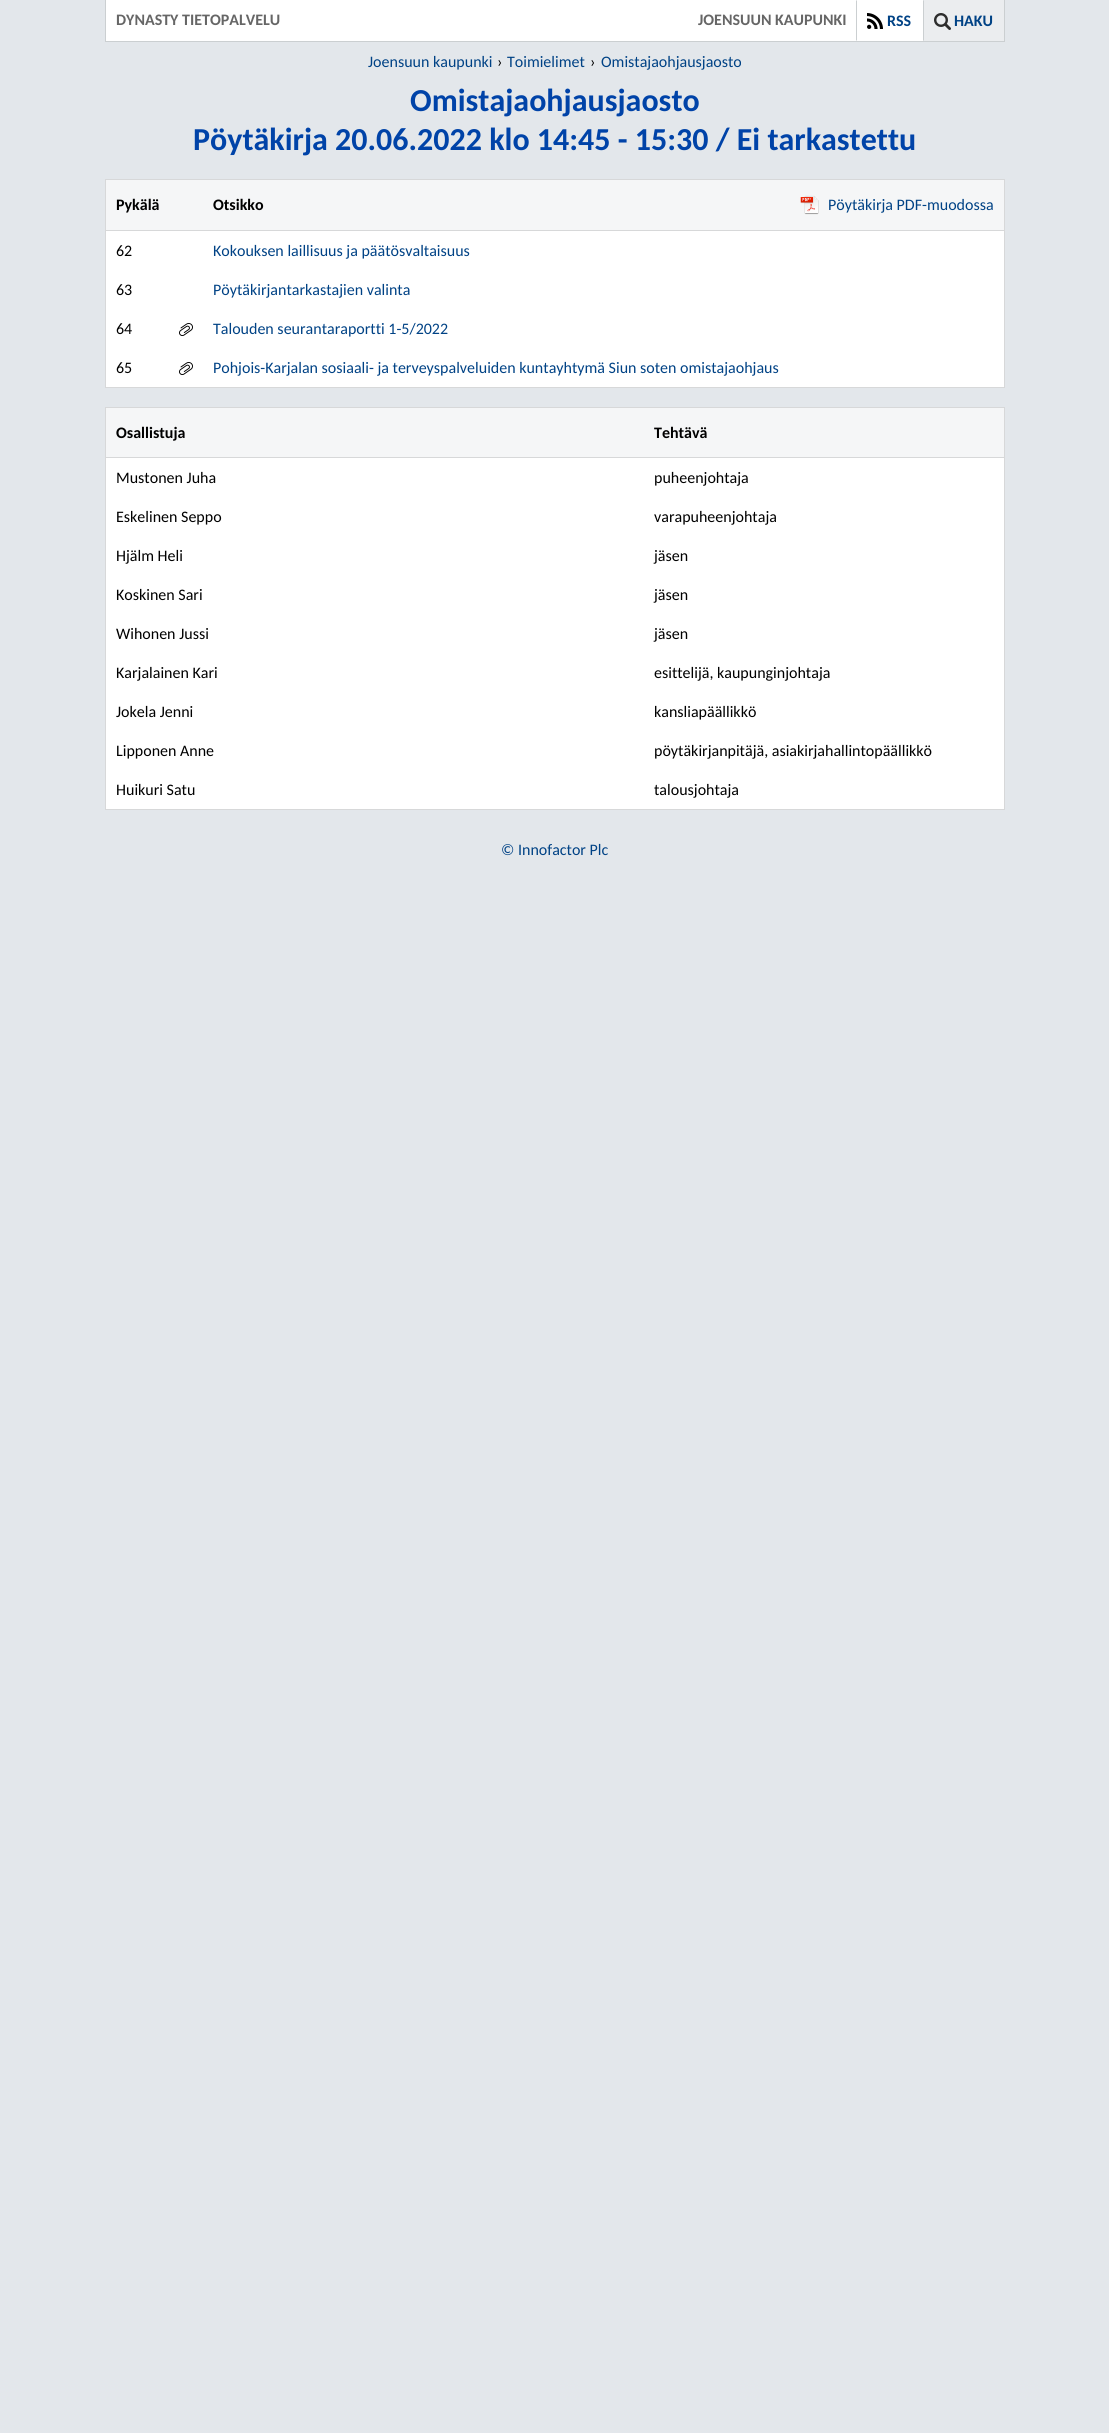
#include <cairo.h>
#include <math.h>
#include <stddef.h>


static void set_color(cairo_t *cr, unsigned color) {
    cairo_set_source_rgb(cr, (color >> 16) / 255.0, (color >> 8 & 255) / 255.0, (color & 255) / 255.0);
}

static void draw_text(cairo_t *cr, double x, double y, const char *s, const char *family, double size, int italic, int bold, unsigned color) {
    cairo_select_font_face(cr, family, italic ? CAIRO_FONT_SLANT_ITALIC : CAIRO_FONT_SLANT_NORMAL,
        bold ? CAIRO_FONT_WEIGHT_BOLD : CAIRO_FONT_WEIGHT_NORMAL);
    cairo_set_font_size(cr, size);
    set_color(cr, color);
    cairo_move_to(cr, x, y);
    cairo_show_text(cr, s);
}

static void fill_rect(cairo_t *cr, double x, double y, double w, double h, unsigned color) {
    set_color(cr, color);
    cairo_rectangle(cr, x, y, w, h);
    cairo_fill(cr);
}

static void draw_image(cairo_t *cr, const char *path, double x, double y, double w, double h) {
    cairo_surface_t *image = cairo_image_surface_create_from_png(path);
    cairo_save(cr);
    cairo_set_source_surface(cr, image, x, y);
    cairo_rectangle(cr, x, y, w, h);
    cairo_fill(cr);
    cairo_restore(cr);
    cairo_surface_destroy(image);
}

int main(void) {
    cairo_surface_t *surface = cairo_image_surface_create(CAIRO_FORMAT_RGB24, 1109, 2433);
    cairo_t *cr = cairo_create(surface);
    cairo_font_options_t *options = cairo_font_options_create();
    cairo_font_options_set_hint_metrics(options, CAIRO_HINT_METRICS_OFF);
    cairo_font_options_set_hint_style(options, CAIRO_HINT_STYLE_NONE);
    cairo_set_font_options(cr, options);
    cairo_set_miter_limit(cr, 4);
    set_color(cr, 0xE3E7EB);
    cairo_paint(cr);
    fill_rect(cr, 106, 0, 817, 41, 0xFFFFFF);
    fill_rect(cr, 1004, 0, 1, 42, 0xCBCFD1);
    fill_rect(cr, 105, 41, 900, 1, 0xCBCFD1);
    fill_rect(cr, 105, 0, 1, 42, 0xCBCFD1);
    draw_text(cr, 116, 25, "DYNASTY TIETOPALVELU", "Carlito", 16, 0, 1, 0x666666);
    draw_text(cr, 698, 25, "JOENSUUN KAUPUNKI", "Carlito", 16, 0, 1, 0x666666);
    draw_image(cr, "assets/img1.png", 867, 13, 16, 16);
    set_color(cr, 0xCBCFD1);
    cairo_new_path(cr);
    cairo_move_to(cr, 856, 41);
    cairo_line_to(cr, 856, 0);
    cairo_line_to(cr, 857, 1);
    cairo_line_to(cr, 857, 40);
    cairo_close_path(cr);
    cairo_fill(cr);
    draw_text(cr, 887, 26, "RSS", "Carlito", 16, 0, 1, 0x004285);
    fill_rect(cr, 923, 0, 81, 41, 0xEBEDEF);
    draw_image(cr, "assets/img2.png", 934, 13, 17, 17);
    set_color(cr, 0xCBCFD1);
    cairo_new_path(cr);
    cairo_move_to(cr, 923, 41);
    cairo_line_to(cr, 923, 0);
    cairo_line_to(cr, 924, 1);
    cairo_line_to(cr, 924, 40);
    cairo_close_path(cr);
    cairo_fill(cr);
    draw_text(cr, 954, 26, "HAKU", "Carlito", 16, 0, 1, 0x004285);
    draw_text(cr, 368, 67, "Joensuun kaupunki", "Carlito", 16, 0, 0, 0x004285);
    draw_text(cr, 497, 67, "›", "Carlito", 16, 0, 0, 0x000000);
    draw_text(cr, 507, 67, "Toimielimet", "Carlito", 16, 0, 0, 0x004285);
    draw_text(cr, 590, 67, "›", "Carlito", 16, 0, 0, 0x000000);
    draw_text(cr, 601, 67, "Omistajaohjausjaosto", "Carlito", 16, 0, 0, 0x004285);
    draw_text(cr, 410, 111, "Omistajaohjausjaosto", "Carlito", 32, 0, 1, 0x0043A8);
    draw_text(cr, 193, 150, "Pöytäkirja 20.06.2022 klo 14:45 - 15:30 / Ei tarkastettu", "Carlito", 32, 0, 1, 0x0043A8);
    fill_rect(cr, 106, 231, 898, 156, 0xFFFFFF);
    cairo_rectangle(cr, 105.5, 179.5, 899, 208);
    set_color(cr, 0xD7D8D9);
    cairo_set_line_width(cr, 1);
    cairo_stroke(cr);
    fill_rect(cr, 106, 180, 898, 50, 0xF5F6F7);
    fill_rect(cr, 106, 230, 898, 1, 0xD7D8D9);
    draw_text(cr, 116, 210, "Pykälä", "Carlito", 16, 0, 1, 0x000000);
    draw_text(cr, 213, 210, "Otsikko", "Carlito", 16, 0, 1, 0x000000);
    draw_image(cr, "assets/img3.png", 800, 195, 19, 20);
    draw_text(cr, 828, 210, "Pöytäkirja PDF-muodossa", "Carlito", 16, 0, 0, 0x004285);
    draw_text(cr, 116, 256, "62", "Carlito", 16, 0, 0, 0x000000);
    draw_text(cr, 213, 256, "Kokouksen laillisuus ja päätösvaltaisuus", "Carlito", 16, 0, 0, 0x004285);
    draw_text(cr, 116, 295, "63", "Carlito", 16, 0, 0, 0x000000);
    draw_text(cr, 213, 295, "Pöytäkirjantarkastajien valinta", "Carlito", 16, 0, 0, 0x004285);
    draw_text(cr, 116, 334, "64", "Carlito", 16, 0, 0, 0x000000);
    draw_image(cr, "assets/img4.png", 179, 323, 14, 13);
    draw_text(cr, 213, 334, "Talouden seurantaraportti 1-5/2022", "Carlito", 16, 0, 0, 0x004285);
    draw_text(cr, 116, 373, "65", "Carlito", 16, 0, 0, 0x000000);
    draw_image(cr, "assets/img4.png", 179, 362, 14, 13);
    draw_text(cr, 213, 373, "Pohjois-Karjalan sosiaali- ja terveyspalveluiden kuntayhtymä Siun soten omistajaohjaus", "Carlito", 16, 0, 0, 0x004285);
    fill_rect(cr, 106, 458, 898, 351, 0xFFFFFF);
    cairo_rectangle(cr, 105.5, 407.5, 899, 402);
    set_color(cr, 0xD7D8D9);
    cairo_stroke(cr);
    fill_rect(cr, 106, 408, 898, 49, 0xF5F6F7);
    fill_rect(cr, 106, 457, 898, 1, 0xD7D8D9);
    draw_text(cr, 116, 438, "Osallistuja", "Carlito", 16, 0, 1, 0x000000);
    draw_text(cr, 654, 438, "Tehtävä", "Carlito", 16, 0, 1, 0x000000);
    draw_text(cr, 116, 483, "Mustonen Juha", "Carlito", 16, 0, 0, 0x000000);
    draw_text(cr, 654, 483, "puheenjohtaja", "Carlito", 16, 0, 0, 0x000000);
    draw_text(cr, 116, 522, "Eskelinen Seppo", "Carlito", 16, 0, 0, 0x000000);
    draw_text(cr, 654, 522, "varapuheenjohtaja", "Carlito", 16, 0, 0, 0x000000);
    draw_text(cr, 116, 561, "Hjälm Heli", "Carlito", 16, 0, 0, 0x000000);
    draw_text(cr, 654, 561, "jäsen", "Carlito", 16, 0, 0, 0x000000);
    draw_text(cr, 116, 600, "Koskinen Sari", "Carlito", 16, 0, 0, 0x000000);
    draw_text(cr, 654, 600, "jäsen", "Carlito", 16, 0, 0, 0x000000);
    draw_text(cr, 116, 639, "Wihonen Jussi", "Carlito", 16, 0, 0, 0x000000);
    draw_text(cr, 654, 639, "jäsen", "Carlito", 16, 0, 0, 0x000000);
    draw_text(cr, 116, 678, "Karjalainen Kari", "Carlito", 16, 0, 0, 0x000000);
    draw_text(cr, 654, 678, "esittelijä, kaupunginjohtaja", "Carlito", 16, 0, 0, 0x000000);
    draw_text(cr, 116, 717, "Jokela Jenni", "Carlito", 16, 0, 0, 0x000000);
    draw_text(cr, 654, 717, "kansliapäällikkö", "Carlito", 16, 0, 0, 0x000000);
    draw_text(cr, 116, 756, "Lipponen Anne", "Carlito", 16, 0, 0, 0x000000);
    draw_text(cr, 654, 756, "pöytäkirjanpitäjä, asiakirjahallintopäällikkö", "Carlito", 16, 0, 0, 0x000000);
    draw_text(cr, 116, 795, "Huikuri Satu", "Carlito", 16, 0, 0, 0x000000);
    draw_text(cr, 654, 795, "talousjohtaja", "Carlito", 16, 0, 0, 0x000000);
    draw_text(cr, 501, 855, "© Innofactor Plc", "Carlito", 16, 0, 0, 0x004285);
    cairo_surface_write_to_png(surface, "output.png");
    cairo_font_options_destroy(options);
    cairo_destroy(cr);
    cairo_surface_destroy(surface);
    return 0;
}
